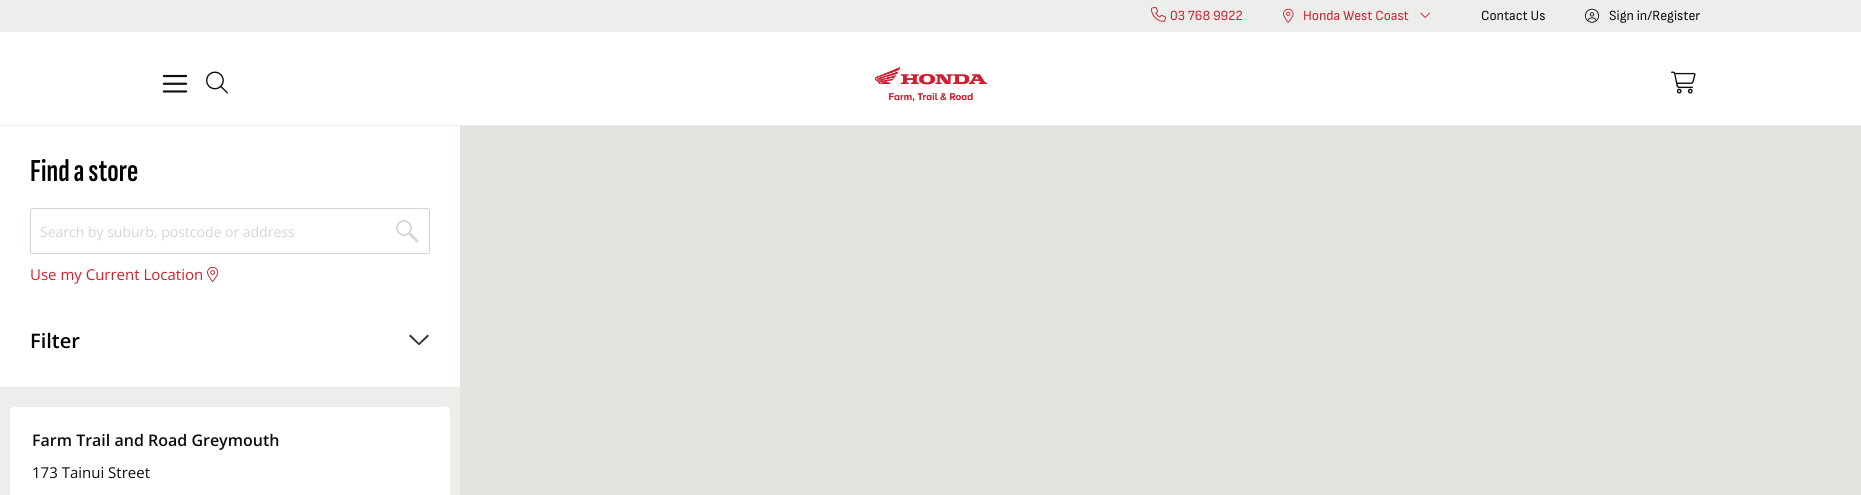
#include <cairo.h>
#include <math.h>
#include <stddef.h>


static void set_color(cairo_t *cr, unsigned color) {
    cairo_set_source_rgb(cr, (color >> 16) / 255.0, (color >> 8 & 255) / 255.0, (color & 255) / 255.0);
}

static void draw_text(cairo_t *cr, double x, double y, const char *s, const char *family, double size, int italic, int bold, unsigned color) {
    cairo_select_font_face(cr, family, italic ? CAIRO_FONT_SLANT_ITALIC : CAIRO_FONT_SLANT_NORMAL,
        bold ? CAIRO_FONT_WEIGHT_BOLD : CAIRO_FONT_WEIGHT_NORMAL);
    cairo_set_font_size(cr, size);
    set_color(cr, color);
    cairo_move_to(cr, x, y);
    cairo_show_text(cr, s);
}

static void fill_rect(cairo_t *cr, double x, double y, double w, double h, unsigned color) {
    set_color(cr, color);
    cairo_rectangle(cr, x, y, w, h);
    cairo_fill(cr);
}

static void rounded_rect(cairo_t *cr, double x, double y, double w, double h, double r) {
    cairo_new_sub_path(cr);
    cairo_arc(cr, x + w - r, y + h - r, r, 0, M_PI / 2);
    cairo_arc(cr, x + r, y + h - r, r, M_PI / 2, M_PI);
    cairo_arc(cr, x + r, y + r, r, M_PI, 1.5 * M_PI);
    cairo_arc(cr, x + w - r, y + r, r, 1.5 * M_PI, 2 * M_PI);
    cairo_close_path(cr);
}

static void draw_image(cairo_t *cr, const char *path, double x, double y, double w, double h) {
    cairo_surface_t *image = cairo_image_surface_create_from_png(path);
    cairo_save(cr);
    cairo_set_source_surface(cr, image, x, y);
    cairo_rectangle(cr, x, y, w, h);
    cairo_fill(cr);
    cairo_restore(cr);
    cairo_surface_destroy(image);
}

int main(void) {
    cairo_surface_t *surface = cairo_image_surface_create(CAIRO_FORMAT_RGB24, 1861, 495);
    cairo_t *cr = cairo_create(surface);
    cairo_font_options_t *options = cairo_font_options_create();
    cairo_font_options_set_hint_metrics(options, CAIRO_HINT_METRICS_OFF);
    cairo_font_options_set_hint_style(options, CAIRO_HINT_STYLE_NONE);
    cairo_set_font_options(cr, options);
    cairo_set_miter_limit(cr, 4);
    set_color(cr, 0xFFFFFF);
    cairo_paint(cr);
    fill_rect(cr, 0, 0, 1861, 32, 0xECEEEC);
    draw_image(cr, "assets/img1.png", 1151, 6, 15, 16);
    draw_text(cr, 1170, 20, "03 768 9922", "Sofia Sans Semi Condensed", 14, 0, 0, 0xD0202B);
    draw_image(cr, "assets/img2.png", 1283, 8, 11, 15);
    draw_text(cr, 1303, 20, "Honda West Coast", "Sofia Sans Semi Condensed", 14, 0, 0, 0xD0202B);
    draw_image(cr, "assets/img3.png", 1420, 12, 10, 6);
    draw_text(cr, 1481, 20, "Contact Us", "Sofia Sans Semi Condensed", 14, 0, 0, 0x0D0E0D);
    draw_image(cr, "assets/img4.png", 1585, 8, 14, 15);
    draw_text(cr, 1609, 20, "Sign in/Register", "Sofia Sans Semi Condensed", 14, 0, 0, 0x0D0E0D);
    fill_rect(cr, 0, 125, 1861, 1, 0xECEEEC);
    draw_image(cr, "assets/img5.png", 162, 74, 26, 19);
    draw_image(cr, "assets/img6.png", 874, 67, 113, 35);
    draw_image(cr, "assets/img7.png", 206, 71, 22, 23);
    draw_image(cr, "assets/img8.png", 1671, 71, 25, 23);
    fill_rect(cr, 0, 387, 460, 108, 0xECEEEC);
    draw_text(cr, 30, 181, "Find a store", "Sofia Sans Extra Condensed SemiBold", 32, 0, 0, 0x000000);
    rounded_rect(cr, 30.5, 208.5, 399, 45, 1.5);
    set_color(cr, 0xD2D6D3);
    cairo_set_line_width(cr, 1);
    cairo_stroke(cr);
    draw_text(cr, 40, 237, "Search by suburb, postcode or address", "Open Sans", 14, 0, 0, 0xD2D6D3);
    cairo_new_path(cr);
    cairo_arc(cr, 404, 228, 7, 0, 2 * M_PI);
    set_color(cr, 0xD7D7D7);
    cairo_set_line_width(cr, 1.9);
    cairo_stroke(cr);
    cairo_new_path(cr);
    cairo_move_to(cr, 408.5, 234.5);
    cairo_line_to(cr, 410.5, 232.5);
    cairo_line_to(cr, 419, 241);
    cairo_line_to(cr, 417, 243);
    cairo_close_path(cr);
    cairo_fill(cr);
    draw_text(cr, 30, 280, "Use my Current Location", "Open Sans", 15, 0, 0, 0xD0202B);
    draw_image(cr, "assets/img9.png", 207, 266, 12, 16);
    fill_rect(cr, 460, 126, 1401, 369, 0xE5E3DF);
    draw_text(cr, 30, 348, "Filter", "Open Sans SemiBold", 20, 0, 0, 0x000000);
    set_color(cr, 0x363636);
    cairo_new_path(cr);
    cairo_move_to(cr, 410.5, 334.5);
    cairo_line_to(cr, 420, 344);
    cairo_line_to(cr, 418.5, 345);
    cairo_line_to(cr, 409, 336);
    cairo_close_path(cr);
    cairo_fill(cr);
    cairo_new_path(cr);
    cairo_move_to(cr, 418, 344);
    cairo_line_to(cr, 427.5, 334.5);
    cairo_line_to(cr, 429, 336);
    cairo_line_to(cr, 419.5, 345);
    cairo_close_path(cr);
    cairo_fill(cr);
    set_color(cr, 0xFFFFFF);
    rounded_rect(cr, 10, 407, 440, 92, 4);
    cairo_fill(cr);
    draw_text(cr, 32, 446, "Farm Trail and Road Greymouth", "Open Sans SemiBold", 16, 0, 0, 0x0D0E0D);
    draw_text(cr, 32, 478, "173 Tainui Street", "Open Sans", 15, 0, 0, 0x0D0E0D);
    cairo_surface_write_to_png(surface, "output.png");
    cairo_font_options_destroy(options);
    cairo_destroy(cr);
    cairo_surface_destroy(surface);
    return 0;
}
